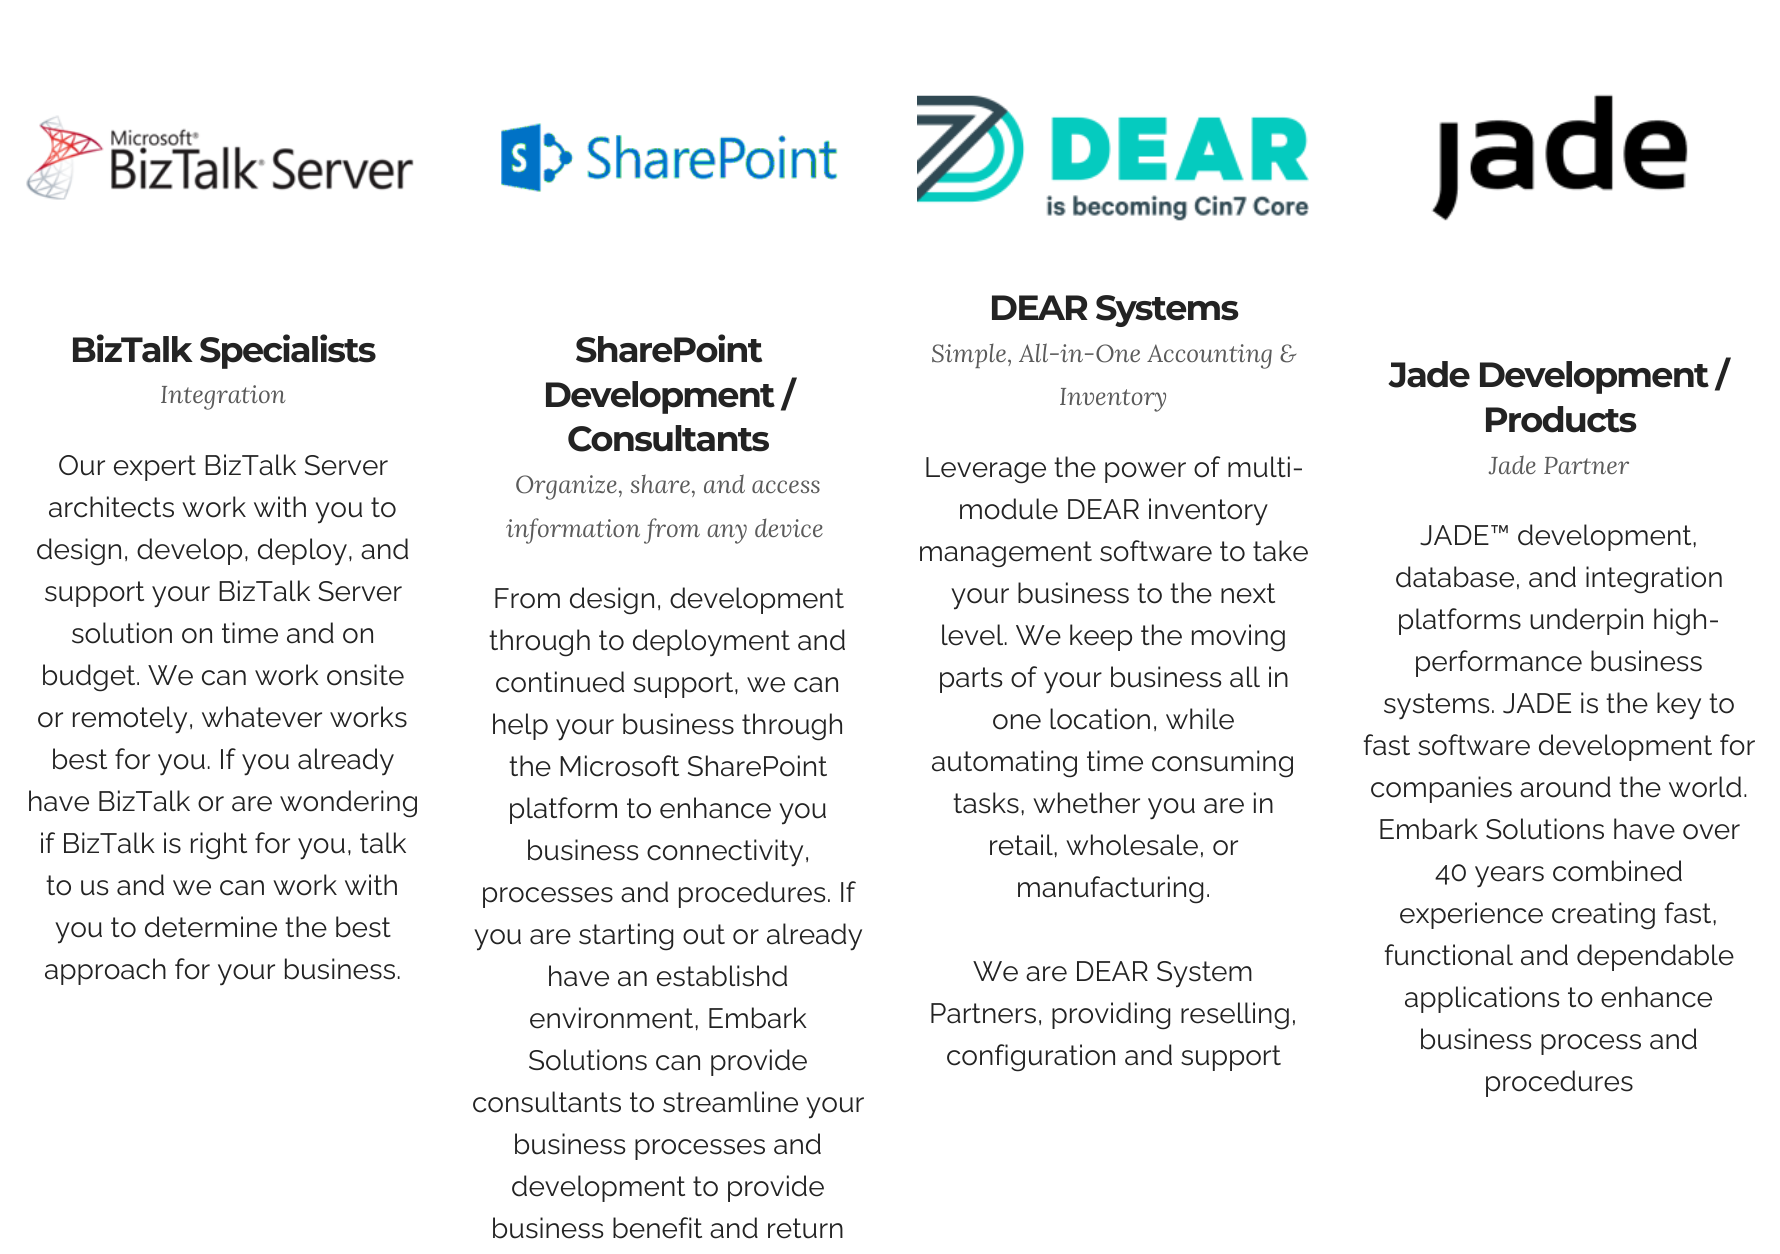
#include <cairo.h>
#include <math.h>
#include <stddef.h>


static void set_color(cairo_t *cr, unsigned color) {
    cairo_set_source_rgb(cr, (color >> 16) / 255.0, (color >> 8 & 255) / 255.0, (color & 255) / 255.0);
}

static void draw_text(cairo_t *cr, double x, double y, const char *s, const char *family, double size, int italic, int bold, unsigned color) {
    cairo_select_font_face(cr, family, italic ? CAIRO_FONT_SLANT_ITALIC : CAIRO_FONT_SLANT_NORMAL,
        bold ? CAIRO_FONT_WEIGHT_BOLD : CAIRO_FONT_WEIGHT_NORMAL);
    cairo_set_font_size(cr, size);
    set_color(cr, color);
    cairo_move_to(cr, x, y);
    cairo_show_text(cr, s);
}

static void draw_spaced(cairo_t *cr, double x, double y, const char *s, double letter, double word) {
    cairo_move_to(cr, x, y);
    while (*s) {
        char ch[5] = {0};
        int n = 0;
        do ch[n++] = *s++; while ((*s & 0xC0) == 0x80);
        cairo_show_text(cr, ch);
        cairo_rel_move_to(cr, letter + word * (*ch == ' '), 0);
    }
}

static void draw_image(cairo_t *cr, const char *path, double x, double y, double w, double h) {
    cairo_surface_t *image = cairo_image_surface_create_from_png(path);
    cairo_save(cr);
    cairo_set_source_surface(cr, image, x, y);
    cairo_rectangle(cr, x, y, w, h);
    cairo_fill(cr);
    cairo_restore(cr);
    cairo_surface_destroy(image);
}

int main(void) {
    cairo_surface_t *surface = cairo_image_surface_create(CAIRO_FORMAT_RGB24, 1780, 1254);
    cairo_t *cr = cairo_create(surface);
    cairo_font_options_t *options = cairo_font_options_create();
    cairo_font_options_set_hint_metrics(options, CAIRO_HINT_METRICS_OFF);
    cairo_font_options_set_hint_style(options, CAIRO_HINT_STYLE_NONE);
    cairo_set_font_options(cr, options);
    cairo_set_miter_limit(cr, 4);
    set_color(cr, 0xFFFFFF);
    cairo_paint(cr);
    draw_image(cr, "assets/img1.png", 26, 115, 388, 85);
    cairo_select_font_face(cr, "Montserrat", CAIRO_FONT_SLANT_NORMAL, CAIRO_FONT_WEIGHT_BOLD);
    cairo_set_font_size(cr, 35);
    set_color(cr, 0x232323);
    draw_spaced(cr, 70, 362, "BizTalk Specialists", -1.75, 0);
    draw_text(cr, 160, 403, "Integration", "Lora", 24.5, 1, 0, 0x5B5B5B);
    draw_text(cr, 58, 475, "Our expert BizTalk Server", "Raleway", 28, 0, 0, 0x232323);
    draw_text(cr, 48, 517, "architects work with you to", "Raleway", 28, 0, 0, 0x232323);
    draw_text(cr, 36, 559, "design, develop, deploy, and", "Raleway", 28, 0, 0, 0x232323);
    draw_text(cr, 44, 601, "support your BizTalk Server", "Raleway", 28, 0, 0, 0x232323);
    draw_text(cr, 71, 643, "solution on time and on", "Raleway", 28, 0, 0, 0x232323);
    draw_text(cr, 41, 685, "budget. We can work onsite", "Raleway", 28, 0, 0, 0x232323);
    draw_text(cr, 37, 727, "or remotely, whatever works", "Raleway", 28, 0, 0, 0x232323);
    draw_text(cr, 51, 769, "best for you. If you already", "Raleway", 28, 0, 0, 0x232323);
    draw_text(cr, 27, 811, "have BizTalk or are wondering", "Raleway", 28, 0, 0, 0x232323);
    draw_text(cr, 39, 853, "if BizTalk is right for you, talk", "Raleway", 28, 0, 0, 0x232323);
    draw_text(cr, 46, 895, "to us and we can work with", "Raleway", 28, 0, 0, 0x232323);
    draw_text(cr, 55, 937, "you to determine the best", "Raleway", 28, 0, 0, 0x232323);
    draw_text(cr, 44, 979, "approach for your business.", "Raleway", 28, 0, 0, 0x232323);
    draw_image(cr, "assets/img2.png", 501, 123, 337, 69);
    cairo_select_font_face(cr, "Montserrat", CAIRO_FONT_SLANT_NORMAL, CAIRO_FONT_WEIGHT_BOLD);
    cairo_set_font_size(cr, 35);
    draw_spaced(cr, 575, 362, "SharePoint", -1.75, 0);
    draw_spaced(cr, 543, 407, "Development /", -1.75, 0);
    draw_spaced(cr, 567, 451, "Consultants", -1.75, 0);
    draw_text(cr, 515, 493, "Organize, share, and access", "Lora", 24.5, 1, 0, 0x5B5B5B);
    draw_text(cr, 506, 537, "information from any device", "Lora", 24.5, 1, 0, 0x5B5B5B);
    draw_text(cr, 493, 608, "From design, development", "Raleway", 28, 0, 0, 0x232323);
    draw_text(cr, 489, 650, "through to deployment and", "Raleway", 28, 0, 0, 0x232323);
    draw_text(cr, 495, 692, "continued support, we can", "Raleway", 28, 0, 0, 0x232323);
    draw_text(cr, 491, 734, "help your business through", "Raleway", 28, 0, 0, 0x232323);
    draw_text(cr, 509, 776, "the Microsoft SharePoint", "Raleway", 28, 0, 0, 0x232323);
    draw_text(cr, 508, 818, "platform to enhance you", "Raleway", 28, 0, 0, 0x232323);
    draw_text(cr, 526, 860, "business connectivity,", "Raleway", 28, 0, 0, 0x232323);
    draw_text(cr, 481, 902, "processes and procedures. If", "Raleway", 28, 0, 0, 0x232323);
    draw_text(cr, 474, 944, "you are starting out or already", "Raleway", 28, 0, 0, 0x232323);
    draw_text(cr, 547, 986, "have an establishd", "Raleway", 28, 0, 0, 0x232323);
    draw_text(cr, 529, 1028, "environment, Embark", "Raleway", 28, 0, 0, 0x232323);
    draw_text(cr, 528, 1070, "Solutions can provide", "Raleway", 28, 0, 0, 0x232323);
    draw_text(cr, 472, 1112, "consultants to streamline your", "Raleway", 28, 0, 0, 0x232323);
    draw_text(cr, 513, 1154, "business processes and", "Raleway", 28, 0, 0, 0x232323);
    draw_text(cr, 511, 1196, "development to provide", "Raleway", 28, 0, 0, 0x232323);
    draw_text(cr, 491, 1238, "business benefit and return", "Raleway", 28, 0, 0, 0x232323);
    draw_image(cr, "assets/img3.png", 917, 95, 392, 126);
    cairo_select_font_face(cr, "Montserrat", CAIRO_FONT_SLANT_NORMAL, CAIRO_FONT_WEIGHT_BOLD);
    cairo_set_font_size(cr, 35);
    draw_spaced(cr, 989, 320, "DEAR Systems", -1.75, 0);
    draw_text(cr, 931, 362, "Simple, All-in-One Accounting &", "Lora", 24.5, 1, 0, 0x5B5B5B);
    draw_text(cr, 1059, 405, "Inventory", "Lora", 24.5, 1, 0, 0x5B5B5B);
    draw_text(cr, 924, 477, "Leverage the power of multi-", "Raleway", 28, 0, 0, 0x232323);
    draw_text(cr, 958, 519, "module DEAR inventory", "Raleway", 28, 0, 0, 0x232323);
    draw_text(cr, 918, 561, "management software to take", "Raleway", 28, 0, 0, 0x232323);
    draw_text(cr, 951, 603, "your business to the next", "Raleway", 28, 0, 0, 0x232323);
    draw_text(cr, 940, 645, "level. We keep the moving", "Raleway", 28, 0, 0, 0x232323);
    draw_text(cr, 938, 687, "parts of your business all in", "Raleway", 28, 0, 0, 0x232323);
    draw_text(cr, 992, 729, "one location, while", "Raleway", 28, 0, 0, 0x232323);
    draw_text(cr, 931, 771, "automating time consuming", "Raleway", 28, 0, 0, 0x232323);
    draw_text(cr, 953, 813, "tasks, whether you are in", "Raleway", 28, 0, 0, 0x232323);
    draw_text(cr, 988, 855, "retail, wholesale, or", "Raleway", 28, 0, 0, 0x232323);
    draw_text(cr, 1016, 897, "manufacturing.", "Raleway", 28, 0, 0, 0x232323);
    draw_text(cr, 973, 981, "We are DEAR System", "Raleway", 28, 0, 0, 0x232323);
    draw_text(cr, 929, 1023, "Partners, providing reselling,", "Raleway", 28, 0, 0, 0x232323);
    draw_text(cr, 946, 1065, "configuration and support", "Raleway", 28, 0, 0, 0x232323);
    draw_image(cr, "assets/img4.png", 1431, 94, 257, 127);
    cairo_select_font_face(cr, "Montserrat", CAIRO_FONT_SLANT_NORMAL, CAIRO_FONT_WEIGHT_BOLD);
    cairo_set_font_size(cr, 35);
    draw_spaced(cr, 1389, 387, "Jade Development /", -1.75, 0);
    draw_spaced(cr, 1483, 432, "Products", -1.75, 0);
    draw_text(cr, 1489, 474, "Jade Partner", "Lora", 24.5, 1, 0, 0x5B5B5B);
    draw_text(cr, 1420, 545, "JADE™ development,", "Raleway", 28, 0, 0, 0x232323);
    draw_text(cr, 1395, 587, "database, and integration", "Raleway", 28, 0, 0, 0x232323);
    draw_text(cr, 1397, 629, "platforms underpin high-", "Raleway", 28, 0, 0, 0x232323);
    draw_text(cr, 1414, 671, "performance business", "Raleway", 28, 0, 0, 0x232323);
    draw_text(cr, 1383, 713, "systems. JADE is the key to", "Raleway", 28, 0, 0, 0x232323);
    draw_text(cr, 1363, 755, "fast software development for", "Raleway", 28, 0, 0, 0x232323);
    draw_text(cr, 1370, 797, "companies around the world.", "Raleway", 28, 0, 0, 0x232323);
    draw_text(cr, 1378, 839, "Embark Solutions have over", "Raleway", 28, 0, 0, 0x232323);
    draw_text(cr, 1435, 881, "40 years combined", "Raleway", 28, 0, 0, 0x232323);
    draw_text(cr, 1399, 923, "experience creating fast,", "Raleway", 28, 0, 0, 0x232323);
    draw_text(cr, 1384, 965, "functional and dependable", "Raleway", 28, 0, 0, 0x232323);
    draw_text(cr, 1404, 1007, "applications to enhance", "Raleway", 28, 0, 0, 0x232323);
    draw_text(cr, 1419, 1049, "business process and", "Raleway", 28, 0, 0, 0x232323);
    draw_text(cr, 1484, 1091, "procedures", "Raleway", 28, 0, 0, 0x232323);
    cairo_surface_write_to_png(surface, "output.png");
    cairo_font_options_destroy(options);
    cairo_destroy(cr);
    cairo_surface_destroy(surface);
    return 0;
}
